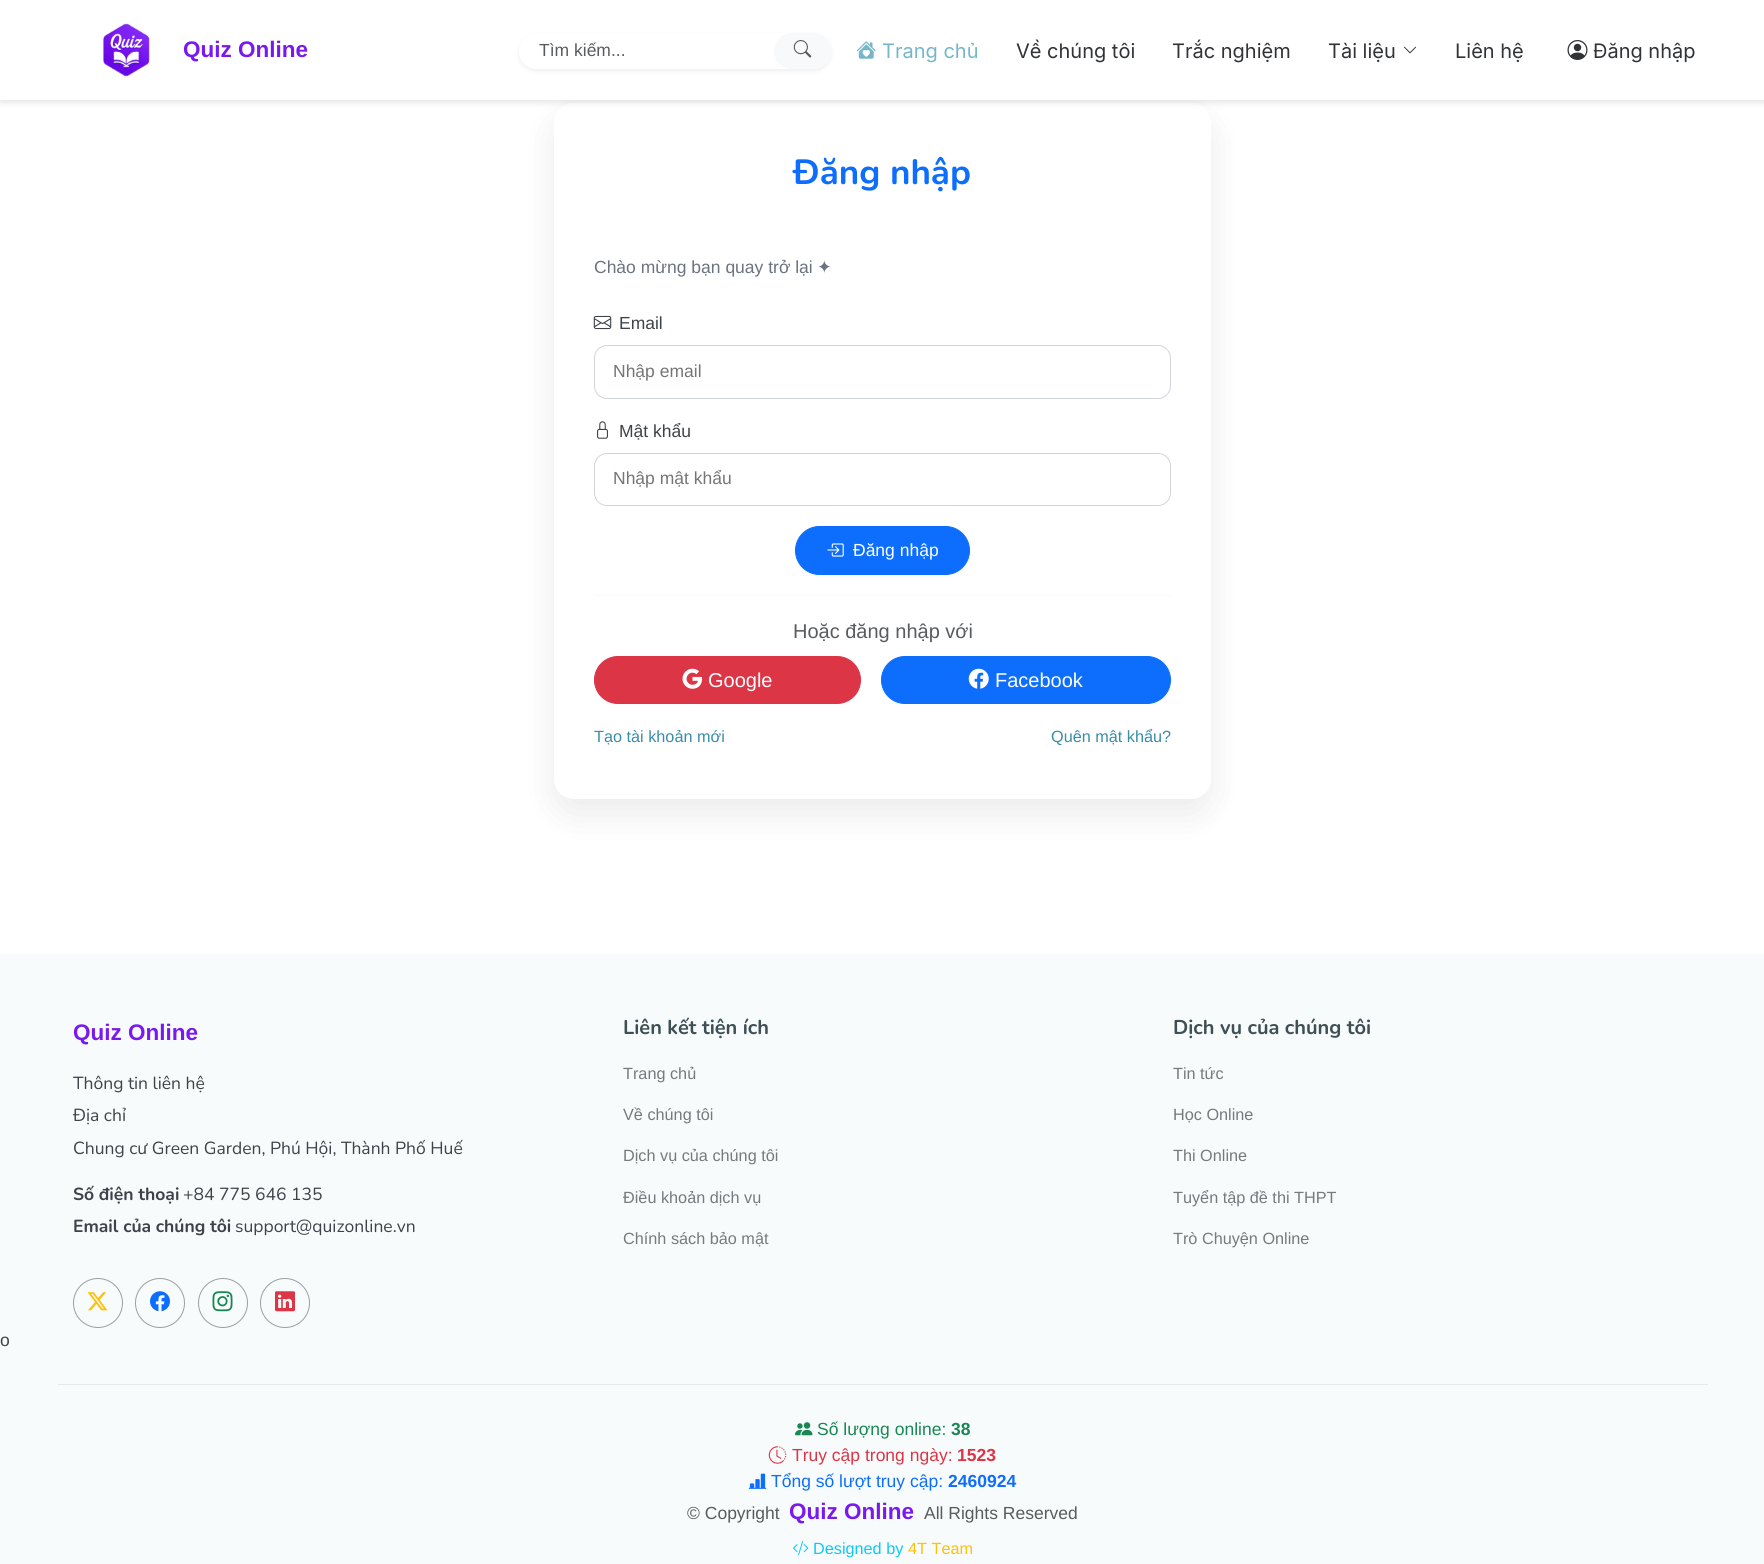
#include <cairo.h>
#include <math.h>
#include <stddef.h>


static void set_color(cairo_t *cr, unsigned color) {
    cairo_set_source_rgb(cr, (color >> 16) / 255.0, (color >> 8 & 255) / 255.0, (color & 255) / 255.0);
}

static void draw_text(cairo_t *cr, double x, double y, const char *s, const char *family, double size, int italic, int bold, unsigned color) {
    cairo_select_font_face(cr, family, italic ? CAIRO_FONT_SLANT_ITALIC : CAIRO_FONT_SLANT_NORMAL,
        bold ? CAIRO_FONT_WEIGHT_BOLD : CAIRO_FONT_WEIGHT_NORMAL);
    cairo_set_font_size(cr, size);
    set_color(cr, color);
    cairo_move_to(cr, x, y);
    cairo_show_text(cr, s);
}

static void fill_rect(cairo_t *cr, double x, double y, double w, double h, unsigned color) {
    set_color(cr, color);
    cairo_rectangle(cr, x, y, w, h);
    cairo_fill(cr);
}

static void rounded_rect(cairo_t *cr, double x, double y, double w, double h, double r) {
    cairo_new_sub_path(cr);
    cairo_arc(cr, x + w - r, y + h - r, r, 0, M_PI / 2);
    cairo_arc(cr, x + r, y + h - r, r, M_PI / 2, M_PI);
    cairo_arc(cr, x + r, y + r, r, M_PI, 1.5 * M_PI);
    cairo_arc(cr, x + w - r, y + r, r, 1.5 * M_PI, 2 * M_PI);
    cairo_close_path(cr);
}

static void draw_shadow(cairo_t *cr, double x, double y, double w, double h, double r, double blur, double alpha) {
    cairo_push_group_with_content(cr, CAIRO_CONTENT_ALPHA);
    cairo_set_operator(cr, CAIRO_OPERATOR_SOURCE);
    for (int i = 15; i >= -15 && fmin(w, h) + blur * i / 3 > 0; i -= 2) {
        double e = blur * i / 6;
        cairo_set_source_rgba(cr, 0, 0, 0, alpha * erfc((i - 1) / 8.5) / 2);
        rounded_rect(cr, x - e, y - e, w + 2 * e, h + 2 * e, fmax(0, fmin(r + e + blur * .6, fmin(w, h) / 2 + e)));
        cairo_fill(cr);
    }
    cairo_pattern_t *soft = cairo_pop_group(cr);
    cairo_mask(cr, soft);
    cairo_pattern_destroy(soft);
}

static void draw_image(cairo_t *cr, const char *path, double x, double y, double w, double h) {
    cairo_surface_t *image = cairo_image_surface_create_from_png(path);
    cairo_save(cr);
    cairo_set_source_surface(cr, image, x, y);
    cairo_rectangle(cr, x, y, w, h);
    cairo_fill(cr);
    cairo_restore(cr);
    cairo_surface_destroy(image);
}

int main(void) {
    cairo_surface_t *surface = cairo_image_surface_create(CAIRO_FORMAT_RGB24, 1764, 1564);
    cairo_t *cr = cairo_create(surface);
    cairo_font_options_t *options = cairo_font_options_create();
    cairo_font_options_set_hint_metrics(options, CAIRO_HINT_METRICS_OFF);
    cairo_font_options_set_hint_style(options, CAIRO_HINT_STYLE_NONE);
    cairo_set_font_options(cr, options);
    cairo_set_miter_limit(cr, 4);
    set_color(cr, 0xFFFFFF);
    cairo_paint(cr);
    set_color(cr, 0x000000);
    draw_shadow(cr, 554, 118, 657, 696, 20, 17.5, 0.08);
    set_color(cr, 0xFFFFFF);
    rounded_rect(cr, 554, 103, 657, 696, 20);
    cairo_fill(cr);
    set_color(cr, 0x000000);
    draw_shadow(cr, 0, 3, 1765, 100, 0, 3, 0.1);
    fill_rect(cr, 0, 0, 1764, 100, 0xFFFFFF);
    draw_image(cr, "assets/img1.png", 103, 23, 47, 54);
    draw_text(cr, 183, 57, "Quiz Online", "Liberation Sans", 22.5, 0, 1, 0x7A19EF);
    cairo_save(cr);
    cairo_set_fill_rule(cr, CAIRO_FILL_RULE_EVEN_ODD);
    cairo_new_path(cr);
    cairo_move_to(cr, 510, 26);
    cairo_line_to(cr, 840, 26);
    cairo_line_to(cr, 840, 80);
    cairo_line_to(cr, 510, 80);
    cairo_close_path(cr);
    cairo_move_to(cr, 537, 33);
    cairo_line_to(cr, 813, 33);
    cairo_curve_to(cr, 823, 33, 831, 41, 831, 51);
    cairo_curve_to(cr, 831, 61, 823, 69, 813, 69);
    cairo_line_to(cr, 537, 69);
    cairo_curve_to(cr, 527, 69, 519, 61, 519, 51);
    cairo_curve_to(cr, 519, 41, 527, 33, 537, 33);
    cairo_close_path(cr);
    cairo_clip(cr);
    set_color(cr, 0x000000);
    draw_shadow(cr, 519, 35, 312, 36, 18, 2.5, 0.07);
    cairo_restore(cr);
    set_color(cr, 0xFFFFFF);
    rounded_rect(cr, 519, 33, 256, 36, 18);
    cairo_fill(cr);
    draw_text(cr, 539, 56, "Tìm kiếm...", "Liberation Sans", 17.5, 0, 0, 0x595C5F);
    set_color(cr, 0xF8F9FA);
    rounded_rect(cr, 774, 33, 57, 36, 18);
    cairo_fill(cr);
    draw_image(cr, "assets/img2.png", 793, 40, 19, 18);
    draw_image(cr, "assets/img3.png", 856, 41, 20, 18);
    draw_text(cr, 882, 58, "Trang chủ", "Inter", 20, 0, 0, 0x77B6CA);
    draw_text(cr, 1016, 58, "Về chúng tôi", "Inter", 20, 0, 0, 0x313336);
    draw_text(cr, 1172, 58, "Trắc nghiệm", "Inter", 20, 0, 0, 0x313336);
    draw_text(cr, 1328, 58, "Tài liệu", "Inter", 20, 0, 0, 0x313336);
    draw_image(cr, "assets/img4.png", 1403, 46, 14, 8);
    draw_text(cr, 1455, 58, "Liên hệ", "Inter", 20, 0, 0, 0x313336);
    draw_image(cr, "assets/img5.png", 1567, 40, 21, 20);
    draw_text(cr, 1593, 58, "Đăng nhập", "Inter", 20, 0, 0, 0x313336);
    draw_text(cr, 793, 184, "Đăng nhập", "Nunito", 35, 0, 1, 0x0D6EFD);
    draw_text(cr, 594, 273, "Chào mừng bạn quay trở lại", "Liberation Sans", 17.5, 0, 0, 0x6B7280);
    draw_text(cr, 817, 273, "✦", "DejaVu Sans", 17.5, 0, 0, 0x6B7280);
    draw_image(cr, "assets/img6.png", 593, 315, 19, 15);
    draw_text(cr, 619, 329, "Email", "Liberation Sans", 17.5, 0, 0, 0x3D4348);
    rounded_rect(cr, 594.5, 345.5, 576, 53, 12.5);
    set_color(cr, 0xD1D5DB);
    cairo_set_line_width(cr, 1);
    cairo_stroke(cr);
    draw_text(cr, 613, 377, "Nhập email", "Liberation Sans", 17.5, 0, 0, 0x757575);
    draw_image(cr, "assets/img7.png", 597, 421, 11, 18);
    draw_text(cr, 619, 437, "Mật khẩu", "Liberation Sans", 17.5, 0, 0, 0x3D4348);
    rounded_rect(cr, 594.5, 453.5, 576, 52, 12.5);
    set_color(cr, 0xD1D5DB);
    cairo_stroke(cr);
    draw_text(cr, 613, 484, "Nhập mật khẩu", "Liberation Sans", 17.5, 0, 0, 0x757575);
    set_color(cr, 0x0D6EFD);
    rounded_rect(cr, 795.5, 526.5, 174, 48, 24);
    cairo_fill_preserve(cr);
    cairo_stroke(cr);
    draw_image(cr, "assets/img8.png", 827, 543, 17, 14);
    draw_text(cr, 853, 556, "Đăng nhập", "Liberation Sans", 17.5, 0, 0, 0xFFFFFF);
    fill_rect(cr, 594, 595, 577, 1, 0xF9F9FA);
    draw_text(cr, 793, 638, "Hoặc đăng nhập với", "Liberation Sans", 20, 0, 0, 0x595C5F);
    set_color(cr, 0xDC3545);
    rounded_rect(cr, 594.5, 656.5, 266, 47, 23.5);
    cairo_fill_preserve(cr);
    cairo_stroke(cr);
    draw_image(cr, "assets/img9.png", 682, 668, 21, 21);
    draw_text(cr, 708, 687, "Google", "Liberation Sans", 20, 0, 0, 0xFFFFFF);
    set_color(cr, 0x0D6EFD);
    rounded_rect(cr, 881.5, 656.5, 289, 47, 23.5);
    cairo_fill_preserve(cr);
    cairo_stroke(cr);
    draw_image(cr, "assets/img10.png", 968, 668, 21, 21);
    draw_text(cr, 995, 687, "Facebook", "Liberation Sans", 20, 0, 0, 0xFFFFFF);
    draw_text(cr, 594, 742, "Tạo tài khoản mới", "Liberation Sans", 16.25, 0, 0, 0x388DA8);
    draw_text(cr, 1051, 742, "Quên mật khẩu?", "Liberation Sans", 16.25, 0, 0, 0x388DA8);
    fill_rect(cr, 0, 954, 1764, 610, 0xF8FBFC);
    draw_text(cr, 73, 1040, "Quiz Online", "Liberation Sans", 22.5, 0, 1, 0x7A19EF);
    draw_text(cr, 73, 1089, "Thông tin liên hệ", "Nunito", 17.5, 0, 0, 0x3D4348);
    draw_text(cr, 73, 1121, "Địa chỉ", "Nunito", 17.5, 0, 0, 0x3D4348);
    draw_text(cr, 73, 1154, "Chung cư Green Garden, Phú Hội, Thành Phố Huế", "Nunito", 17.5, 0, 0, 0x3D4348);
    draw_text(cr, 73, 1200, "Số điện thoại", "Nunito", 17.5, 0, 1, 0x3D4348);
    draw_text(cr, 183, 1200, "+84 775 646 135", "Nunito", 17.5, 0, 0, 0x3D4348);
    draw_text(cr, 73, 1232, "Email của chúng tôi", "Nunito", 17.5, 0, 1, 0x3D4348);
    draw_text(cr, 235, 1232, "support@quizonline.vn", "Nunito", 17.5, 0, 0, 0x3D4348);
    cairo_new_path(cr);
    cairo_arc(cr, 98, 1303, 24.5, 0, 2 * M_PI);
    set_color(cr, 0x9B9FA2);
    cairo_stroke(cr);
    draw_image(cr, "assets/img11.png", 87, 1292, 21, 19);
    cairo_arc(cr, 160, 1303, 24.5, 0, 2 * M_PI);
    cairo_stroke(cr);
    draw_image(cr, "assets/img12.png", 150, 1291, 20, 21);
    cairo_arc(cr, 223, 1303, 24.5, 0, 2 * M_PI);
    cairo_stroke(cr);
    draw_image(cr, "assets/img13.png", 212, 1291, 21, 21);
    cairo_arc(cr, 285, 1303, 24.5, 0, 2 * M_PI);
    cairo_stroke(cr);
    draw_image(cr, "assets/img14.png", 275, 1291, 20, 21);
    draw_text(cr, 623, 1034, "Liên kết tiện ích", "Nunito", 20, 0, 1, 0x3E5055);
    draw_text(cr, 623, 1079, "Trang chủ", "Liberation Sans", 16.25, 0, 0, 0x757A7E);
    draw_text(cr, 623, 1120, "Về chúng tôi", "Liberation Sans", 16.25, 0, 0, 0x757A7E);
    draw_text(cr, 623, 1161, "Dịch vụ của chúng tôi", "Liberation Sans", 16.25, 0, 0, 0x757A7E);
    draw_text(cr, 623, 1203, "Điều khoản dịch vụ", "Liberation Sans", 16.25, 0, 0, 0x757A7E);
    draw_text(cr, 623, 1244, "Chính sách bảo mật", "Liberation Sans", 16.25, 0, 0, 0x757A7E);
    draw_text(cr, 1173, 1034, "Dịch vụ của chúng tôi", "Nunito", 20, 0, 1, 0x3E5055);
    draw_text(cr, 1173, 1079, "Tin tức", "Liberation Sans", 16.25, 0, 0, 0x757A7E);
    draw_text(cr, 1173, 1120, "Học Online", "Liberation Sans", 16.25, 0, 0, 0x757A7E);
    draw_text(cr, 1173, 1161, "Thi Online", "Liberation Sans", 16.25, 0, 0, 0x757A7E);
    draw_text(cr, 1173, 1203, "Tuyển tập đề thi THPT", "Liberation Sans", 16.25, 0, 0, 0x757A7E);
    draw_text(cr, 1173, 1244, "Trò Chuyện Online", "Liberation Sans", 16.25, 0, 0, 0x757A7E);
    draw_text(cr, 0, 1346, "o", "Liberation Sans", 17.5, 0, 0, 0x3D4348);
    fill_rect(cr, 58, 1384, 1650, 1, 0xE5E9EA);
    draw_image(cr, "assets/img15.png", 795, 1422, 18, 14);
    draw_text(cr, 817, 1435, "Số lượng online:", "Liberation Sans", 17.5, 0, 0, 0x198754);
    draw_text(cr, 951, 1435, "38", "Liberation Sans", 17.5, 0, 1, 0x198754);
    draw_image(cr, "assets/img16.png", 768, 1446, 19, 18);
    draw_text(cr, 792, 1461, "Truy cập trong ngày:", "Liberation Sans", 17.5, 0, 0, 0xDC3545);
    draw_text(cr, 957, 1461, "1523", "Liberation Sans", 17.5, 0, 1, 0xDC3545);
    draw_image(cr, "assets/img17.png", 748, 1473, 19, 16);
    draw_text(cr, 771, 1487, "Tổng số lượt truy cập:", "Liberation Sans", 17.5, 0, 0, 0x0D6EFD);
    draw_text(cr, 948, 1487, "2460924", "Liberation Sans", 17.5, 0, 1, 0x0D6EFD);
    draw_text(cr, 687, 1519, "© Copyright", "Liberation Sans", 17.5, 0, 0, 0x595C5F);
    draw_text(cr, 789, 1519, "Quiz Online", "Liberation Sans", 22.5, 0, 1, 0x7A19EF);
    draw_text(cr, 924, 1519, "All Rights Reserved", "Liberation Sans", 17.5, 0, 0, 0x595C5F);
    draw_image(cr, "assets/img18.png", 793, 1541, 16, 15);
    draw_text(cr, 813, 1554, "Designed by", "Liberation Sans", 16.25, 0, 0, 0x0DCAF0);
    draw_text(cr, 908, 1554, "4T Team", "Liberation Sans", 16.25, 0, 0, 0xFFC107);
    cairo_surface_write_to_png(surface, "output.png");
    cairo_font_options_destroy(options);
    cairo_destroy(cr);
    cairo_surface_destroy(surface);
    return 0;
}
